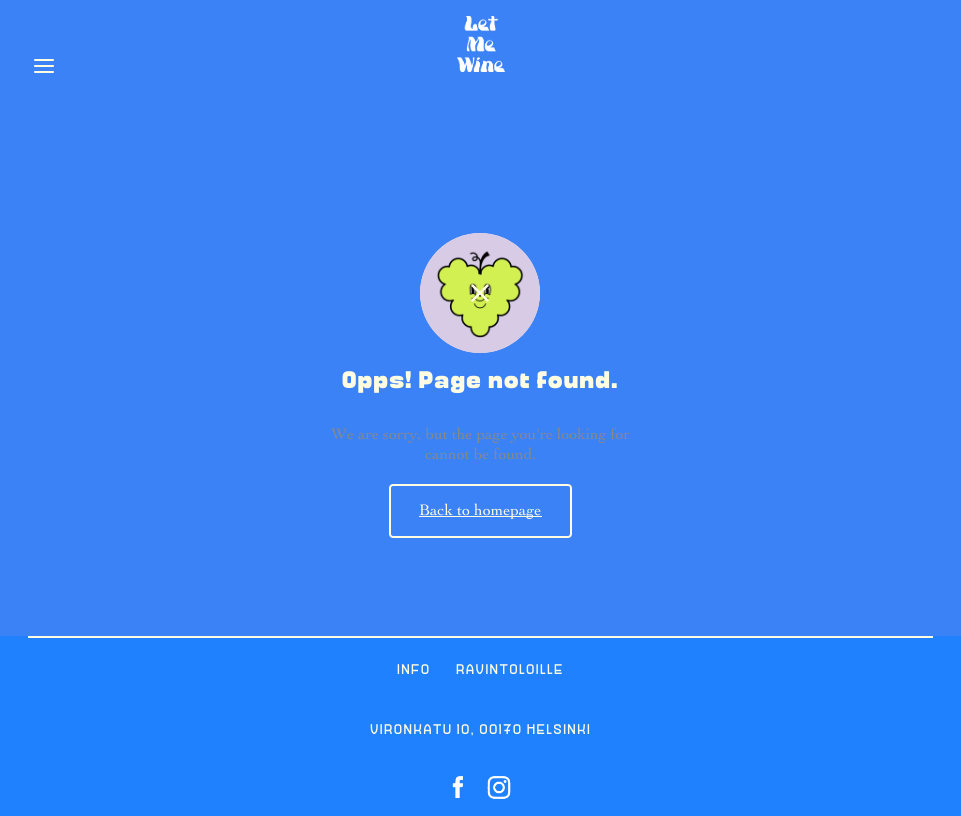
#include <cairo.h>
#include <math.h>
#include <stddef.h>


static void set_color(cairo_t *cr, unsigned color) {
    cairo_set_source_rgb(cr, (color >> 16) / 255.0, (color >> 8 & 255) / 255.0, (color & 255) / 255.0);
}

static void draw_text(cairo_t *cr, double x, double y, const char *s, const char *family, double size, int italic, int bold, unsigned color) {
    cairo_select_font_face(cr, family, italic ? CAIRO_FONT_SLANT_ITALIC : CAIRO_FONT_SLANT_NORMAL,
        bold ? CAIRO_FONT_WEIGHT_BOLD : CAIRO_FONT_WEIGHT_NORMAL);
    cairo_set_font_size(cr, size);
    set_color(cr, color);
    cairo_move_to(cr, x, y);
    cairo_show_text(cr, s);
}

static void draw_spaced(cairo_t *cr, double x, double y, const char *s, double letter, double word) {
    cairo_move_to(cr, x, y);
    while (*s) {
        char ch[5] = {0};
        int n = 0;
        do ch[n++] = *s++; while ((*s & 0xC0) == 0x80);
        cairo_show_text(cr, ch);
        cairo_rel_move_to(cr, letter + word * (*ch == ' '), 0);
    }
}

static void fill_rect(cairo_t *cr, double x, double y, double w, double h, unsigned color) {
    set_color(cr, color);
    cairo_rectangle(cr, x, y, w, h);
    cairo_fill(cr);
}

static void rounded_rect(cairo_t *cr, double x, double y, double w, double h, double r) {
    cairo_new_sub_path(cr);
    cairo_arc(cr, x + w - r, y + h - r, r, 0, M_PI / 2);
    cairo_arc(cr, x + r, y + h - r, r, M_PI / 2, M_PI);
    cairo_arc(cr, x + r, y + r, r, M_PI, 1.5 * M_PI);
    cairo_arc(cr, x + w - r, y + r, r, 1.5 * M_PI, 2 * M_PI);
    cairo_close_path(cr);
}

static void draw_image(cairo_t *cr, const char *path, double x, double y, double w, double h) {
    cairo_surface_t *image = cairo_image_surface_create_from_png(path);
    cairo_save(cr);
    cairo_set_source_surface(cr, image, x, y);
    cairo_rectangle(cr, x, y, w, h);
    cairo_fill(cr);
    cairo_restore(cr);
    cairo_surface_destroy(image);
}

int main(void) {
    cairo_surface_t *surface = cairo_image_surface_create(CAIRO_FORMAT_RGB24, 961, 816);
    cairo_t *cr = cairo_create(surface);
    cairo_font_options_t *options = cairo_font_options_create();
    cairo_font_options_set_hint_metrics(options, CAIRO_HINT_METRICS_OFF);
    cairo_font_options_set_hint_style(options, CAIRO_HINT_STYLE_NONE);
    cairo_set_font_options(cr, options);
    cairo_set_miter_limit(cr, 4);
    set_color(cr, 0x3C82F7);
    cairo_paint(cr);
    cairo_new_path(cr);
    cairo_move_to(cr, 35, 66);
    cairo_line_to(cr, 53, 66);
    cairo_move_to(cr, 35, 60);
    cairo_line_to(cr, 53, 60);
    cairo_move_to(cr, 35, 72);
    cairo_line_to(cr, 53, 72);
    set_color(cr, 0xFFFDE1);
    cairo_set_line_cap(cr, CAIRO_LINE_CAP_ROUND);
    cairo_set_line_join(cr, CAIRO_LINE_JOIN_ROUND);
    cairo_stroke(cr);
    draw_image(cr, "assets/img1.png", 457, 16, 48, 56);
    set_color(cr, 0xD8CBE6);
    cairo_arc(cr, 480, 293, 60, 0, 2 * M_PI);
    cairo_fill(cr);
    draw_image(cr, "assets/img2.png", 420, 233, 120, 120);
    cairo_new_path(cr);
    cairo_move_to(cr, 487.5, 285.5);
    cairo_line_to(cr, 472.5, 300.5);
    cairo_move_to(cr, 472.5, 285.5);
    cairo_line_to(cr, 487.5, 300.5);
    set_color(cr, 0xFFFCE1);
    cairo_set_line_width(cr, 2.5);
    cairo_stroke(cr);
    cairo_select_font_face(cr, "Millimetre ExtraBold", CAIRO_FONT_SLANT_NORMAL, CAIRO_FONT_WEIGHT_NORMAL);
    cairo_set_font_size(cr, 24);
    set_color(cr, 0xFFFDE1);
    draw_spaced(cr, 342, 388, "Opps! Page not found.", 1.4, 0);
    draw_text(cr, 331, 439, "We are sorry, but the page you're looking for", "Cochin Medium", 16, 0, 0, 0x888888);
    draw_text(cr, 425, 459, "cannot be found.", "Cochin Medium", 16, 0, 0, 0x888888);
    rounded_rect(cr, 390, 485, 181, 52, 3);
    set_color(cr, 0xFFFCE1);
    cairo_set_line_width(cr, 2);
    cairo_set_line_cap(cr, CAIRO_LINE_CAP_BUTT);
    cairo_set_line_join(cr, CAIRO_LINE_JOIN_MITER);
    cairo_stroke(cr);
    fill_rect(cr, 419, 516, 123, 1, 0xFFFCE1);
    draw_text(cr, 419, 515, "Back to homepage", "Cochin Medium", 16, 0, 0, 0xFFFDE1);
    fill_rect(cr, 0, 636, 961, 180, 0x2081FF);
    fill_rect(cr, 28, 636, 905, 2, 0xFFFDE1);
    cairo_select_font_face(cr, "Millimetre", CAIRO_FONT_SLANT_NORMAL, CAIRO_FONT_WEIGHT_NORMAL);
    cairo_set_font_size(cr, 14);
    draw_spaced(cr, 397, 674, "INFO", 1.4, 0);
    draw_spaced(cr, 456, 674, "RAVINTOLOILLE", 1.4, 0);
    draw_spaced(cr, 370, 734, "VIRONKATU 10, 00170 HELSINKI", 1.4, 0);
    draw_image(cr, "assets/img3.png", 452, 776, 11, 22);
    draw_image(cr, "assets/img4.png", 487, 776, 24, 23);
    cairo_surface_write_to_png(surface, "output.png");
    cairo_font_options_destroy(options);
    cairo_destroy(cr);
    cairo_surface_destroy(surface);
    return 0;
}
